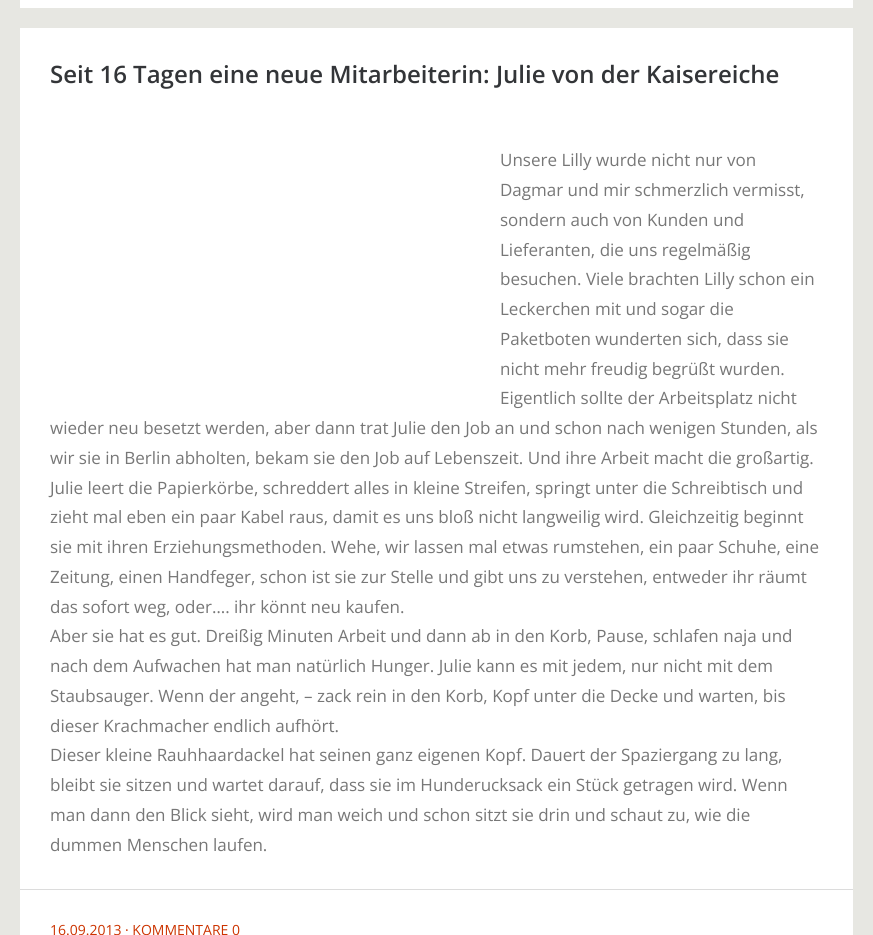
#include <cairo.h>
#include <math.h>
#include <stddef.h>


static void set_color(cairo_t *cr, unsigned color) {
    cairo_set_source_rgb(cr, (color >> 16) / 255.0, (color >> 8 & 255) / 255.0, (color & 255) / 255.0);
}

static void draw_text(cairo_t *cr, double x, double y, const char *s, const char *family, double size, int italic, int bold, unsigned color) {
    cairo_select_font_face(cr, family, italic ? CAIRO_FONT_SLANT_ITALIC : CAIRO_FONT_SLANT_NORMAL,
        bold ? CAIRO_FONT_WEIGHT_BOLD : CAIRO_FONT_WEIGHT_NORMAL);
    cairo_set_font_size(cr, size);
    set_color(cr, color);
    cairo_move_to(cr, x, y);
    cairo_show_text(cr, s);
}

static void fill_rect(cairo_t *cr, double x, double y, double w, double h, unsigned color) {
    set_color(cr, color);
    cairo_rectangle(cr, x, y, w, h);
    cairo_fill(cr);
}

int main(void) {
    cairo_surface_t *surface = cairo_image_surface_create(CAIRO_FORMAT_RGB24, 873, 935);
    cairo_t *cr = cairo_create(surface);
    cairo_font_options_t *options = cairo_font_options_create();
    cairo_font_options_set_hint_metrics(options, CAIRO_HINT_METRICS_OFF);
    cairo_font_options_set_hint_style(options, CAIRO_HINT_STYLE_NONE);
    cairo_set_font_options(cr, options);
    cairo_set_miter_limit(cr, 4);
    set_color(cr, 0xE7E7E2);
    cairo_paint(cr);
    fill_rect(cr, 20, 0, 833, 8, 0xFFFFFF);
    fill_rect(cr, 20, 28, 833, 907, 0xFFFFFF);
    draw_text(cr, 50, 83, "Seit 16 Tagen eine neue Mitarbeiterin: Julie von der Kaisereiche", "Open Sans SemiBold", 24, 0, 0, 0x333538);
    draw_text(cr, 500, 166, "Unsere Lilly wurde nicht nur von", "Open Sans", 17, 0, 0, 0x777777);
    draw_text(cr, 500, 196, "Dagmar und mir schmerzlich vermisst,", "Open Sans", 17, 0, 0, 0x777777);
    draw_text(cr, 500, 226, "sondern auch von Kunden und", "Open Sans", 17, 0, 0, 0x777777);
    draw_text(cr, 500, 256, "Lieferanten, die uns regelmäßig", "Open Sans", 17, 0, 0, 0x777777);
    draw_text(cr, 500, 285, "besuchen. Viele brachten Lilly schon ein", "Open Sans", 17, 0, 0, 0x777777);
    draw_text(cr, 500, 315, "Leckerchen mit und sogar die", "Open Sans", 17, 0, 0, 0x777777);
    draw_text(cr, 500, 345, "Paketboten wunderten sich, dass sie", "Open Sans", 17, 0, 0, 0x777777);
    draw_text(cr, 500, 375, "nicht mehr freudig begrüßt wurden.", "Open Sans", 17, 0, 0, 0x777777);
    draw_text(cr, 500, 404, "Eigentlich sollte der Arbeitsplatz nicht", "Open Sans", 17, 0, 0, 0x777777);
    draw_text(cr, 50, 434, "wieder neu besetzt werden, aber dann trat Julie den Job an und schon nach wenigen Stunden, als", "Open Sans", 17, 0, 0, 0x777777);
    draw_text(cr, 50, 464, "wir sie in Berlin abholten, bekam sie den Job auf Lebenszeit. Und ihre Arbeit macht die großartig.", "Open Sans", 17, 0, 0, 0x777777);
    draw_text(cr, 50, 494, "Julie leert die Papierkörbe, schreddert alles in kleine Streifen, springt unter die Schreibtisch und", "Open Sans", 17, 0, 0, 0x777777);
    draw_text(cr, 50, 523, "zieht mal eben ein paar Kabel raus, damit es uns bloß nicht langweilig wird. Gleichzeitig beginnt", "Open Sans", 17, 0, 0, 0x777777);
    draw_text(cr, 50, 553, "sie mit ihren Erziehungsmethoden. Wehe, wir lassen mal etwas rumstehen, ein paar Schuhe, eine", "Open Sans", 17, 0, 0, 0x777777);
    draw_text(cr, 50, 583, "Zeitung, einen Handfeger, schon ist sie zur Stelle und gibt uns zu verstehen, entweder ihr räumt", "Open Sans", 17, 0, 0, 0x777777);
    draw_text(cr, 50, 613, "das sofort weg, oder…. ihr könnt neu kaufen.", "Open Sans", 17, 0, 0, 0x777777);
    draw_text(cr, 50, 642, "Aber sie hat es gut. Dreißig Minuten Arbeit und dann ab in den Korb, Pause, schlafen naja und", "Open Sans", 17, 0, 0, 0x777777);
    draw_text(cr, 50, 672, "nach dem Aufwachen hat man natürlich Hunger. Julie kann es mit jedem, nur nicht mit dem", "Open Sans", 17, 0, 0, 0x777777);
    draw_text(cr, 50, 702, "Staubsauger. Wenn der angeht, – zack rein in den Korb, Kopf unter die Decke und warten, bis", "Open Sans", 17, 0, 0, 0x777777);
    draw_text(cr, 50, 732, "dieser Krachmacher endlich aufhört.", "Open Sans", 17, 0, 0, 0x777777);
    draw_text(cr, 50, 761, "Dieser kleine Rauhhaardackel hat seinen ganz eigenen Kopf. Dauert der Spaziergang zu lang,", "Open Sans", 17, 0, 0, 0x777777);
    draw_text(cr, 50, 791, "bleibt sie sitzen und wartet darauf, dass sie im Hunderucksack ein Stück getragen wird. Wenn", "Open Sans", 17, 0, 0, 0x777777);
    draw_text(cr, 50, 821, "man dann den Blick sieht, wird man weich und schon sitzt sie drin und schaut zu, wie die", "Open Sans", 17, 0, 0, 0x777777);
    draw_text(cr, 50, 851, "dummen Menschen laufen.", "Open Sans", 17, 0, 0, 0x777777);
    fill_rect(cr, 20, 889, 833, 1, 0xDCDCDC);
    draw_text(cr, 50, 935, "16.09.2013 · KOMMENTARE 0", "Open Sans", 14, 0, 0, 0xCC3300);
    cairo_surface_write_to_png(surface, "output.png");
    cairo_font_options_destroy(options);
    cairo_destroy(cr);
    cairo_surface_destroy(surface);
    return 0;
}
